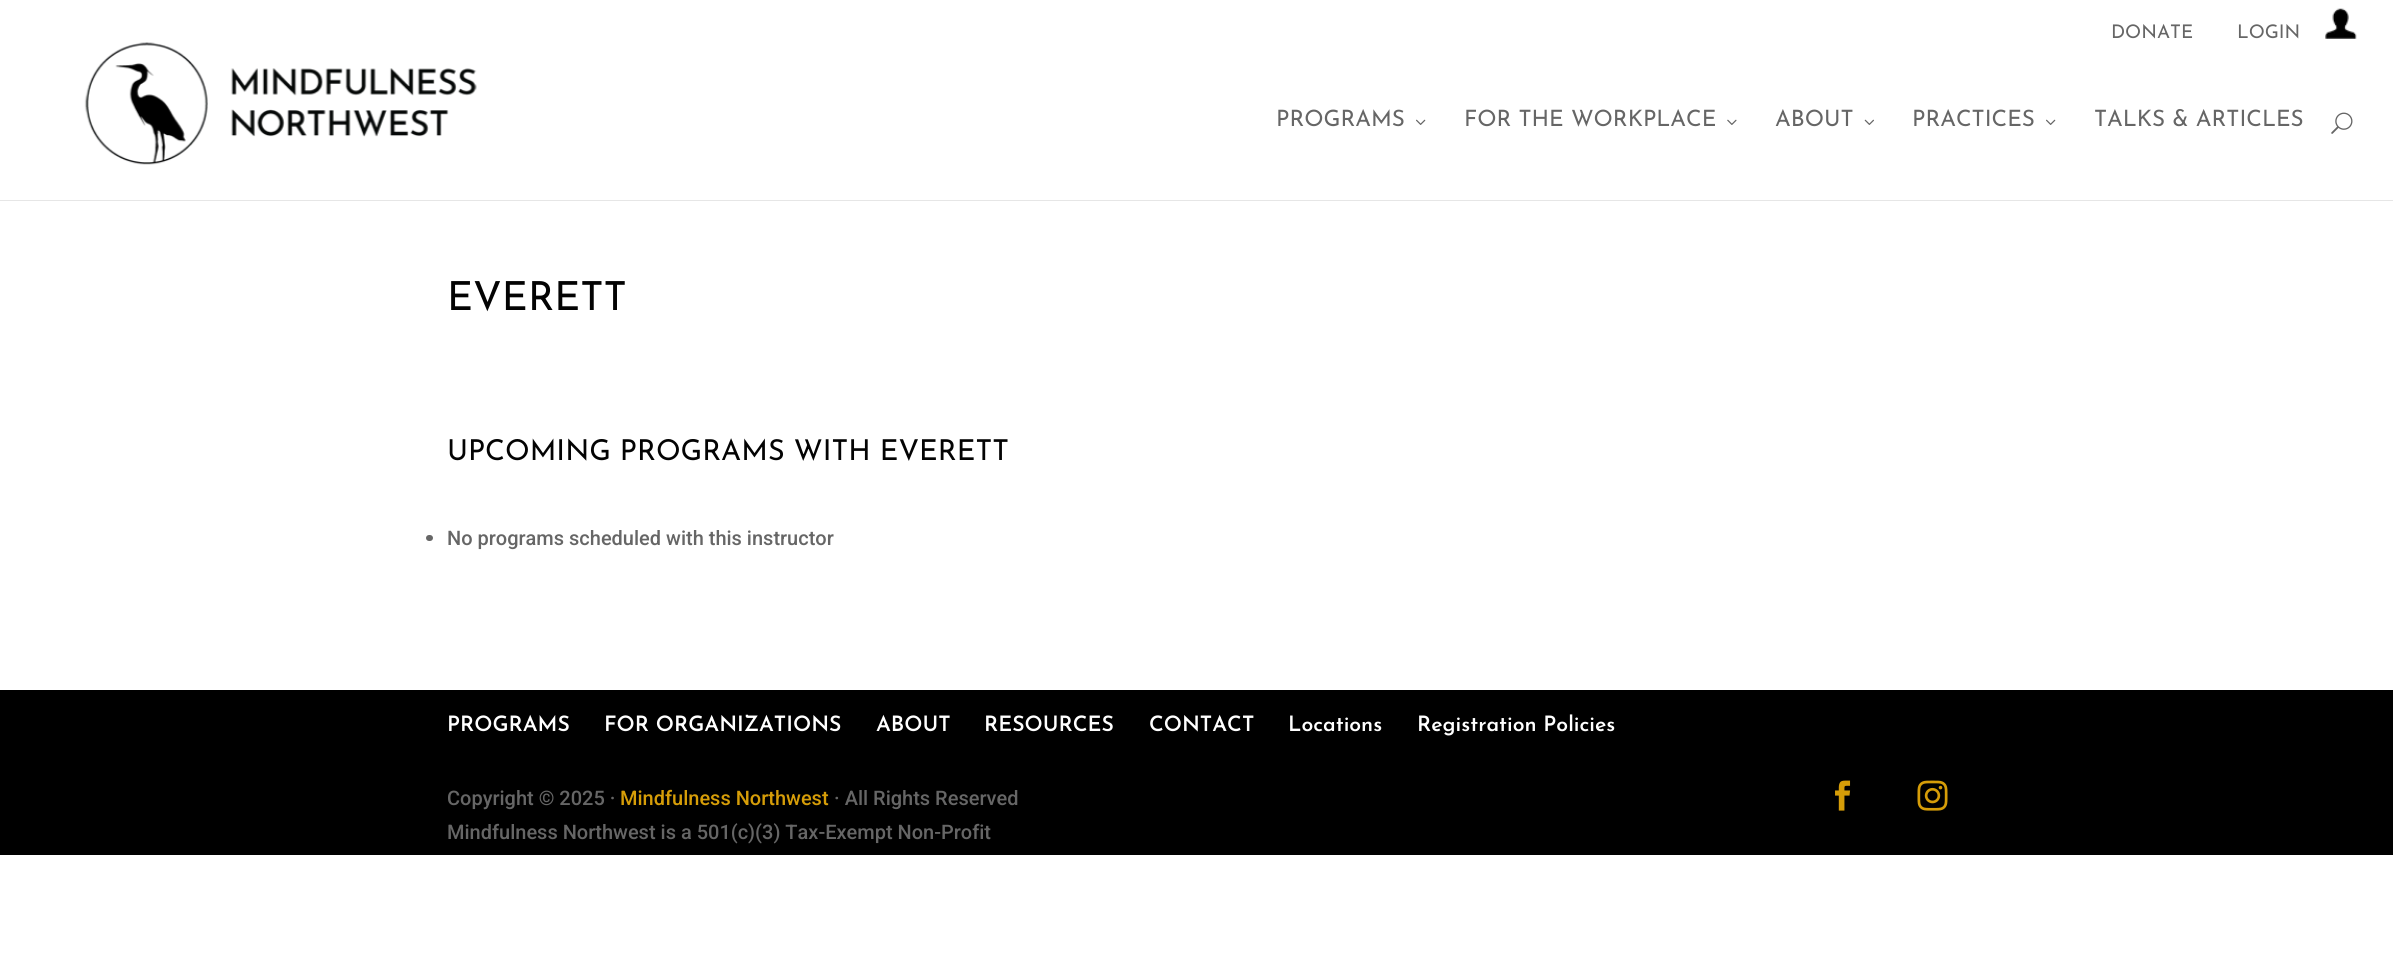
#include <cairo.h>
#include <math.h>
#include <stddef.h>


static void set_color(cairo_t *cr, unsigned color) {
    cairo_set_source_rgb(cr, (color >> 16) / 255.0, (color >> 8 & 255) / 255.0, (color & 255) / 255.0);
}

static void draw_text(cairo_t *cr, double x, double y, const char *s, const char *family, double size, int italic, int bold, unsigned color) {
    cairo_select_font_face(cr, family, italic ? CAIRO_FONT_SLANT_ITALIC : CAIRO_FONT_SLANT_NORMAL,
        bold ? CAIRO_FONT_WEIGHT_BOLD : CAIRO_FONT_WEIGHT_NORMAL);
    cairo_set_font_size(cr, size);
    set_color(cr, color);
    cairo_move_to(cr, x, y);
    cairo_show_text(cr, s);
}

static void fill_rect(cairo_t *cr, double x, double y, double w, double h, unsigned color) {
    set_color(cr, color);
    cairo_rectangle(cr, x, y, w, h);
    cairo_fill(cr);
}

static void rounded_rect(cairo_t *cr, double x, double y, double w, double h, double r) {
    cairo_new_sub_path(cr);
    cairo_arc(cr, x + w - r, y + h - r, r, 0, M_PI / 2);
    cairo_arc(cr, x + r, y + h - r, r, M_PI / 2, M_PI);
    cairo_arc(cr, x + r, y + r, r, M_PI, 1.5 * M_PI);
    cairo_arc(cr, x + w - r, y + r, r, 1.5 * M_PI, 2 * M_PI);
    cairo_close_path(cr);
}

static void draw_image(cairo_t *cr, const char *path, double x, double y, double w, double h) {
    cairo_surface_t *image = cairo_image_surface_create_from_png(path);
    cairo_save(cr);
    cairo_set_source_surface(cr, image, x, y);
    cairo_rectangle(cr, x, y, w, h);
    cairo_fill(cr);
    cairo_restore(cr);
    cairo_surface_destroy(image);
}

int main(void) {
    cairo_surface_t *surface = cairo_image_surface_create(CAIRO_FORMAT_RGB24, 2393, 954);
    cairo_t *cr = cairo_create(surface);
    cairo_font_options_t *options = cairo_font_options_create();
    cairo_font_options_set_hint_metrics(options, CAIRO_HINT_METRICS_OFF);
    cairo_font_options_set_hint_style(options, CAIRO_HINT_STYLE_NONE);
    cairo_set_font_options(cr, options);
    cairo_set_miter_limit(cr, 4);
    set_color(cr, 0xFFFFFF);
    cairo_paint(cr);
    draw_text(cr, 2111, 38, "DONATE", "Josefin Sans Thin", 18.75, 0, 0, 0x666666);
    draw_text(cr, 2237, 38, "LOGIN", "Josefin Sans Thin", 18.75, 0, 0, 0x666666);
    draw_image(cr, "assets/img1.png", 2325, 8, 32, 31);
    set_color(cr, 0xE6E6E6);
    cairo_new_path(cr);
    cairo_move_to(cr, 0, 200);
    cairo_line_to(cr, 0, 201);
    cairo_line_to(cr, 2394, 201);
    cairo_line_to(cr, 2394, 64);
    cairo_line_to(cr, 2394, 200);
    cairo_close_path(cr);
    cairo_fill(cr);
    draw_image(cr, "assets/img2.png", 84, 42, 393, 123);
    draw_text(cr, 1276, 126, "PROGRAMS", "Josefin Sans Thin", 22.5, 0, 0, 0x666666);
    draw_image(cr, "assets/img3.png", 1416, 119, 10, 6);
    draw_text(cr, 1464, 126, "FOR THE WORKPLACE", "Josefin Sans Thin", 22.5, 0, 0, 0x666666);
    draw_image(cr, "assets/img4.png", 1727, 119, 10, 6);
    draw_text(cr, 1775, 126, "ABOUT", "Josefin Sans Thin", 22.5, 0, 0, 0x666666);
    draw_image(cr, "assets/img5.png", 1864, 119, 10, 6);
    draw_text(cr, 1912, 126, "PRACTICES", "Josefin Sans Thin", 22.5, 0, 0, 0x666666);
    draw_image(cr, "assets/img3.png", 2046, 119, 10, 6);
    draw_text(cr, 2094, 126, "TALKS & ARTICLES", "Josefin Sans Thin", 22.5, 0, 0, 0x666666);
    draw_image(cr, "assets/img6.png", 2331, 112, 22, 22);
    draw_text(cr, 447, 310, "EVERETT", "Josefin Sans Thin", 40, 0, 0, 0x030303);
    draw_text(cr, 447, 460, "UPCOMING PROGRAMS WITH EVERETT", "Josefin Sans Thin", 28.75, 0, 0, 0x030303);
    set_color(cr, 0x666666);
    rounded_rect(cr, 426, 535, 7, 6, 3);
    cairo_fill(cr);
    draw_text(cr, 447, 545, "No programs scheduled with this instructor", "Roboto Medium", 20, 0, 0, 0x666666);
    fill_rect(cr, 0, 690, 2393, 165, 0x000000);
    draw_text(cr, 447, 731, "PROGRAMS", "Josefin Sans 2 Thin", 21.25, 0, 0, 0xFFFFFF);
    draw_text(cr, 604, 731, "FOR ORGANIZATIONS", "Josefin Sans 2 Thin", 21.25, 0, 0, 0xFFFFFF);
    draw_text(cr, 876, 731, "ABOUT", "Josefin Sans 2 Thin", 21.25, 0, 0, 0xFFFFFF);
    draw_text(cr, 984, 731, "RESOURCES", "Josefin Sans 2 Thin", 21.25, 0, 0, 0xFFFFFF);
    draw_text(cr, 1149, 731, "CONTACT", "Josefin Sans 2 Thin", 21.25, 0, 0, 0xFFFFFF);
    draw_text(cr, 1288, 731, "Locations", "Josefin Sans 2 Thin", 21.25, 0, 0, 0xFFFFFF);
    draw_text(cr, 1417, 731, "Registration Policies", "Josefin Sans 2 Thin", 21.25, 0, 0, 0xFFFFFF);
    draw_text(cr, 447, 805, "Copyright © 2025 ·", "Roboto Medium", 20, 0, 0, 0x666666);
    draw_text(cr, 620, 805, "Mindfulness Northwest", "Roboto Medium", 20, 0, 0, 0xD69D08);
    draw_text(cr, 834, 805, "· All Rights Reserved", "Roboto Medium", 20, 0, 0, 0x666666);
    draw_text(cr, 447, 839, "Mindfulness Northwest is a 501(c)(3) Tax-Exempt Non-Profit", "Roboto Medium", 20, 0, 0, 0x666666);
    draw_image(cr, "assets/img7.png", 1835, 780, 16, 31);
    draw_image(cr, "assets/img8.png", 1917, 780, 31, 31);
    cairo_surface_write_to_png(surface, "output.png");
    cairo_font_options_destroy(options);
    cairo_destroy(cr);
    cairo_surface_destroy(surface);
    return 0;
}
